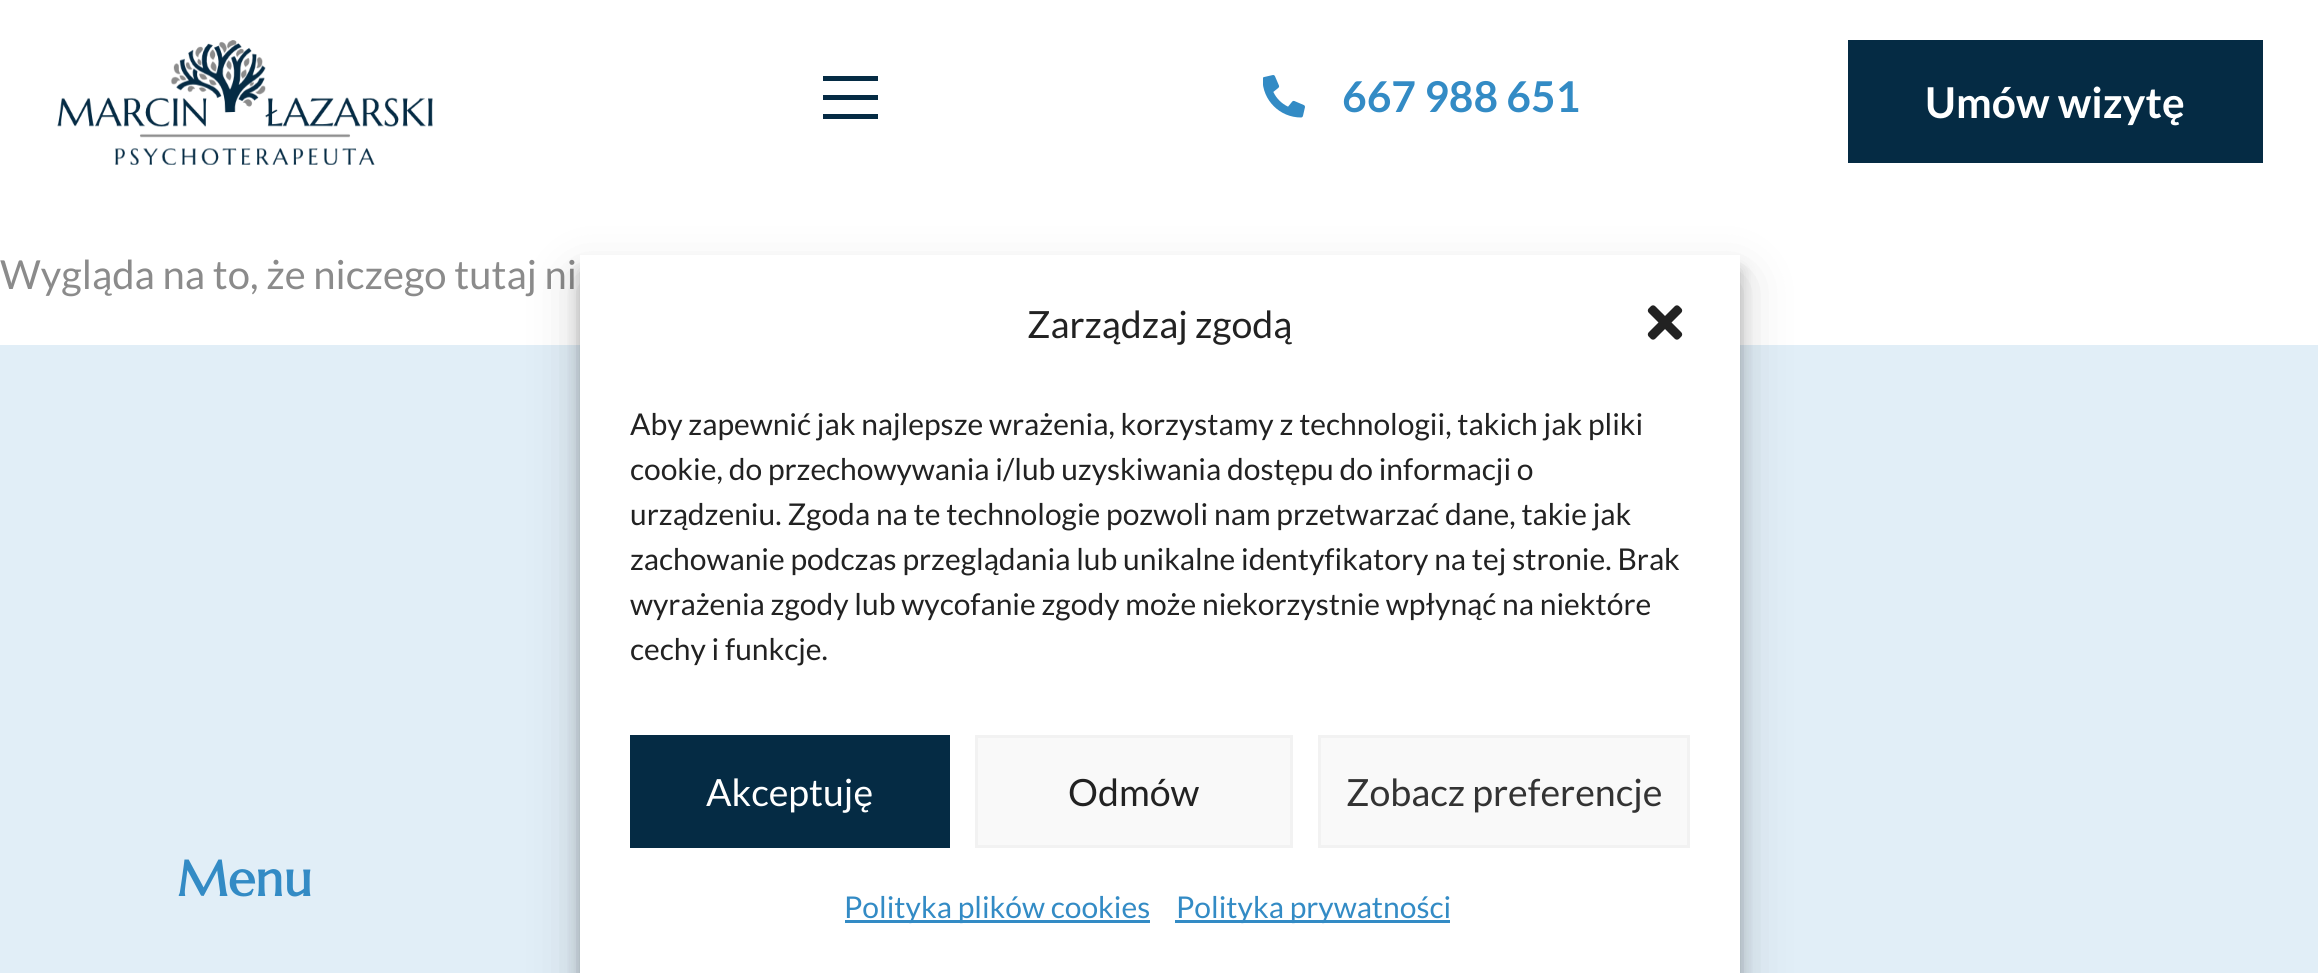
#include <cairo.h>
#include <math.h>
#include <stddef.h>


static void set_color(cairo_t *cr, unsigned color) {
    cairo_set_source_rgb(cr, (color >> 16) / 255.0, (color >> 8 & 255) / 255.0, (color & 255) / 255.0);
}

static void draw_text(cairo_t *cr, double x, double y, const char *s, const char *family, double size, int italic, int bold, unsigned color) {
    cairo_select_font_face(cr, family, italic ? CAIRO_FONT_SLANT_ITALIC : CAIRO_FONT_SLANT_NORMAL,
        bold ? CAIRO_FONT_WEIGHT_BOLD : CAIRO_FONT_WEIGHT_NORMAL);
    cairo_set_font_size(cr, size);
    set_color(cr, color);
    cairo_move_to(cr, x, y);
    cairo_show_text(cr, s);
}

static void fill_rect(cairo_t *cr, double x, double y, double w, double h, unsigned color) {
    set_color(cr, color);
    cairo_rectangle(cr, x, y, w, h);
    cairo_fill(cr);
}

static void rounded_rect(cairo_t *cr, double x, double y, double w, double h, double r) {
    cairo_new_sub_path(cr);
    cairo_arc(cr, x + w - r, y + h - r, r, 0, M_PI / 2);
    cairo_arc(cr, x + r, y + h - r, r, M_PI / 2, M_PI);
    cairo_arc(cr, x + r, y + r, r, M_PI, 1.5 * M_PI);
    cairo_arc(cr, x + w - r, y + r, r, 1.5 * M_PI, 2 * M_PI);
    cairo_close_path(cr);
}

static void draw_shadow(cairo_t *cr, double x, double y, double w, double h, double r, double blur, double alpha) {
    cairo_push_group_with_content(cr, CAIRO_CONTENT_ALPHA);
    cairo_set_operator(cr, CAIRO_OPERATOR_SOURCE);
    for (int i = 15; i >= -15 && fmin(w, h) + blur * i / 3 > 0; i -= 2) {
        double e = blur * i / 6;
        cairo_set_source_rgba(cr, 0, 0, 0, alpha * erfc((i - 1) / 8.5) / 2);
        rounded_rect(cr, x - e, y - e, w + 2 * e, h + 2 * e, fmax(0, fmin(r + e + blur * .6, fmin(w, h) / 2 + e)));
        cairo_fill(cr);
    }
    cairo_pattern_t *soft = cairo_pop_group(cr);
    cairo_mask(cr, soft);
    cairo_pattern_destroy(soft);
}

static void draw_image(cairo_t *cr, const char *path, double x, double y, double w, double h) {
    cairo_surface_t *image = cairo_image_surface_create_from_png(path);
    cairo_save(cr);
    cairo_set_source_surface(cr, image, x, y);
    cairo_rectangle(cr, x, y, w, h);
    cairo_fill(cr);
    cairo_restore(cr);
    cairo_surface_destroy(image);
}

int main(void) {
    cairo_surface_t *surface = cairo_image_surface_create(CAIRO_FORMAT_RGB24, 2318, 973);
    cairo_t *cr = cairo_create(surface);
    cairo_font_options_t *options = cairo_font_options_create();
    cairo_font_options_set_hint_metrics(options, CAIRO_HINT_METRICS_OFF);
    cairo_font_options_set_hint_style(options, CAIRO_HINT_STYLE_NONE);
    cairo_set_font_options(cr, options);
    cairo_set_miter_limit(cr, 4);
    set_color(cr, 0xFFFFFF);
    cairo_paint(cr);
    draw_image(cr, "assets/img1.png", 57, 40, 376, 125);
    fill_rect(cr, 823, 76, 55, 5, 0x052B44);
    fill_rect(cr, 823, 95, 55, 5, 0x052B44);
    fill_rect(cr, 823, 114, 55, 5, 0x052B44);
    draw_image(cr, "assets/img2.png", 1263, 75, 42, 43);
    draw_text(cr, 1342, 112, "667 988 651", "Lato", 42.5, 0, 1, 0x338BC5);
    fill_rect(cr, 1848, 40, 415, 123, 0x052B44);
    draw_text(cr, 1925, 118, "Umów wizytę", "Lato", 42.5, 0, 1, 0xFFFFFF);
    draw_text(cr, 0, 289, "Wygląda na to, że niczego tutaj ni", "Lato", 40, 0, 0, 0x8B8B8B);
    fill_rect(cr, 0, 345, 2318, 628, 0xE1EEF7);
    draw_text(cr, 177, 896, "Menu", "Marcellus", 50, 0, 1, 0x338BC5);
    set_color(cr, 0x000000);
    draw_shadow(cr, 580, 270, 1160, 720, 0, 7.5, 0.23);
    draw_shadow(cr, 580, 280, 1160, 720, 0, 25, 0.19);
    fill_rect(cr, 580, 255, 1160, 718, 0xFFFFFF);
    draw_text(cr, 1027, 338, "Zarządzaj zgodą", "Lato", 37.5, 0, 0, 0x222222);
    draw_image(cr, "assets/img3.png", 1647, 305, 36, 35);
    draw_text(cr, 630, 435, "Aby zapewnić jak najlepsze wrażenia, korzystamy z technologii, takich jak pliki", "Lato", 30, 0, 0, 0x222222);
    draw_text(cr, 630, 480, "cookie, do przechowywania i/lub uzyskiwania dostępu do informacji o", "Lato", 30, 0, 0, 0x222222);
    draw_text(cr, 630, 525, "urządzeniu. Zgoda na te technologie pozwoli nam przetwarzać dane, takie jak", "Lato", 30, 0, 0, 0x222222);
    draw_text(cr, 630, 570, "zachowanie podczas przeglądania lub unikalne identyfikatory na tej stronie. Brak", "Lato", 30, 0, 0, 0x222222);
    draw_text(cr, 630, 615, "wyrażenia zgody lub wycofanie zgody może niekorzystnie wpłynąć na niektóre", "Lato", 30, 0, 0, 0x222222);
    draw_text(cr, 630, 660, "cechy i funkcje.", "Lato", 30, 0, 0, 0x222222);
    fill_rect(cr, 630, 735, 320, 113, 0x052B44);
    draw_text(cr, 706, 806, "Akceptuję", "Lato", 37.5, 0, 0, 0xFFFFFF);
    set_color(cr, 0xF9F9F9);
    cairo_rectangle(cr, 976.5, 736.5, 315, 110);
    cairo_fill_preserve(cr);
    set_color(cr, 0xF2F2F2);
    cairo_set_line_width(cr, 3);
    cairo_stroke(cr);
    draw_text(cr, 1068, 806, "Odmów", "Lato", 37.5, 0, 0, 0x222222);
    set_color(cr, 0xF9F9F9);
    cairo_rectangle(cr, 1319.5, 736.5, 369, 110);
    cairo_fill_preserve(cr);
    set_color(cr, 0xF2F2F2);
    cairo_stroke(cr);
    draw_text(cr, 1346, 806, "Zobacz preferencje", "Lato", 37.5, 0, 0, 0x333333);
    fill_rect(cr, 845, 920, 305, 3, 0x338BC5);
    draw_text(cr, 844, 918, "Polityka plików cookies", "Lato", 30, 0, 0, 0x338BC5);
    fill_rect(cr, 1175, 920, 275, 3, 0x338BC5);
    draw_text(cr, 1176, 918, "Polityka prywatności", "Lato", 30, 0, 0, 0x338BC5);
    cairo_surface_write_to_png(surface, "output.png");
    cairo_font_options_destroy(options);
    cairo_destroy(cr);
    cairo_surface_destroy(surface);
    return 0;
}
